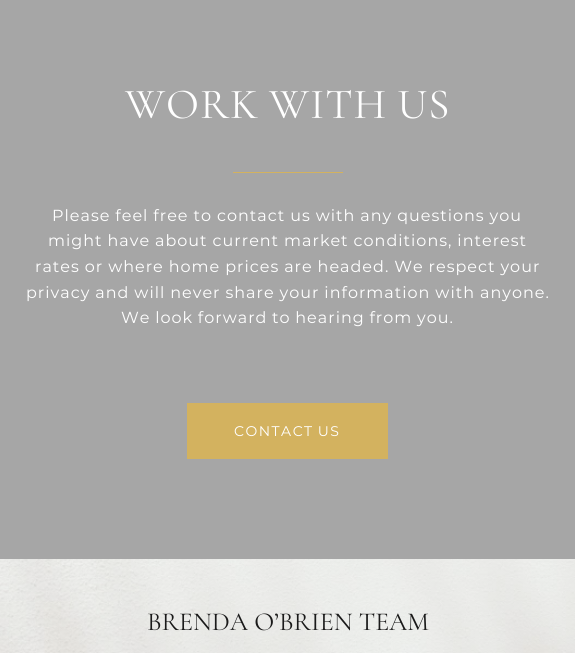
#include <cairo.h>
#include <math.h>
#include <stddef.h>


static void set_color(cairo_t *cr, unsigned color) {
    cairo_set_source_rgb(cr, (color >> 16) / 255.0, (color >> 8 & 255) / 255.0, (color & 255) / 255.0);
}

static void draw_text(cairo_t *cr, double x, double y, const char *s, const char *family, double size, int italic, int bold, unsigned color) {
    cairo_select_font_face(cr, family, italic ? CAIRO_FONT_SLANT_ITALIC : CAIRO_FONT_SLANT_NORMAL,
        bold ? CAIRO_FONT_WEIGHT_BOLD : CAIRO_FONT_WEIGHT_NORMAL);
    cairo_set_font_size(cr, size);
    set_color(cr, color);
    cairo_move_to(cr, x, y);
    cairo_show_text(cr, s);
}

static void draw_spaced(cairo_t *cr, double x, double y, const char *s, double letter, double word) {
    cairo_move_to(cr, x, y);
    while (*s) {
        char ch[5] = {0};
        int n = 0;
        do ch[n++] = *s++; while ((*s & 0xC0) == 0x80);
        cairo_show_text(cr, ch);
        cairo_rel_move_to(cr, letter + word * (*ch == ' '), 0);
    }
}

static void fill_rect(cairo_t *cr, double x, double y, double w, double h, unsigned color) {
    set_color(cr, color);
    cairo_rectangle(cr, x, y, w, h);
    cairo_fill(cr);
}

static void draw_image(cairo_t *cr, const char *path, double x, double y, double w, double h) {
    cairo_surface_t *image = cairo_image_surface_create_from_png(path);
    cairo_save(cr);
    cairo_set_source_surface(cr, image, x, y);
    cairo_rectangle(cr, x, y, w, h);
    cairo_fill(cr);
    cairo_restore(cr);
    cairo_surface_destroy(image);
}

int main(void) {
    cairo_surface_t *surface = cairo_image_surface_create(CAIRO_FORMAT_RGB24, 575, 653);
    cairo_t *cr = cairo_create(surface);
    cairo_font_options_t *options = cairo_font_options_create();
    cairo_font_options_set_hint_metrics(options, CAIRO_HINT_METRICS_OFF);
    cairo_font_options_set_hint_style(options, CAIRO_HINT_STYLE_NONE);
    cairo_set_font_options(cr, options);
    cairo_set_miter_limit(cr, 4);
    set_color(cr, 0xA6A6A6);
    cairo_paint(cr);
    cairo_select_font_face(cr, "Cormorant Garamond", CAIRO_FONT_SLANT_NORMAL, CAIRO_FONT_WEIGHT_NORMAL);
    cairo_set_font_size(cr, 43);
    set_color(cr, 0xFFFFFF);
    draw_spaced(cr, 125, 118, "WORK WITH US", 1, -1);
    fill_rect(cr, 233, 172, 110, 1, 0xD3B25F);
    cairo_select_font_face(cr, "Montserrat", CAIRO_FONT_SLANT_NORMAL, CAIRO_FONT_WEIGHT_NORMAL);
    cairo_set_font_size(cr, 16);
    set_color(cr, 0xFFFFFF);
    draw_spaced(cr, 52, 221, "Please feel free to contact us with any questions you", 1, -0.25);
    draw_spaced(cr, 48, 246, "might have about current market conditions, interest", 1, -0.25);
    draw_spaced(cr, 35, 272, "rates or where home prices are headed. We respect your", 1, -0.25);
    draw_spaced(cr, 26, 298, "privacy and will never share your information with anyone.", 1, -0.25);
    draw_spaced(cr, 121, 323, "We look forward to hearing from you.", 1, -0.5);
    fill_rect(cr, 187, 403, 201, 56, 0xD3B25F);
    cairo_set_font_size(cr, 14);
    set_color(cr, 0xFFFFFF);
    draw_spaced(cr, 234, 436, "CONTACT US", 1.5, -1);
    draw_image(cr, "assets/img1.png", 0, 559, 575, 94);
    draw_text(cr, 147, 630, "BRENDA O’BRIEN TEAM", "Cormorant Garamond", 26, 0, 0, 0x1A1A1A);
    cairo_surface_write_to_png(surface, "output.png");
    cairo_font_options_destroy(options);
    cairo_destroy(cr);
    cairo_surface_destroy(surface);
    return 0;
}
